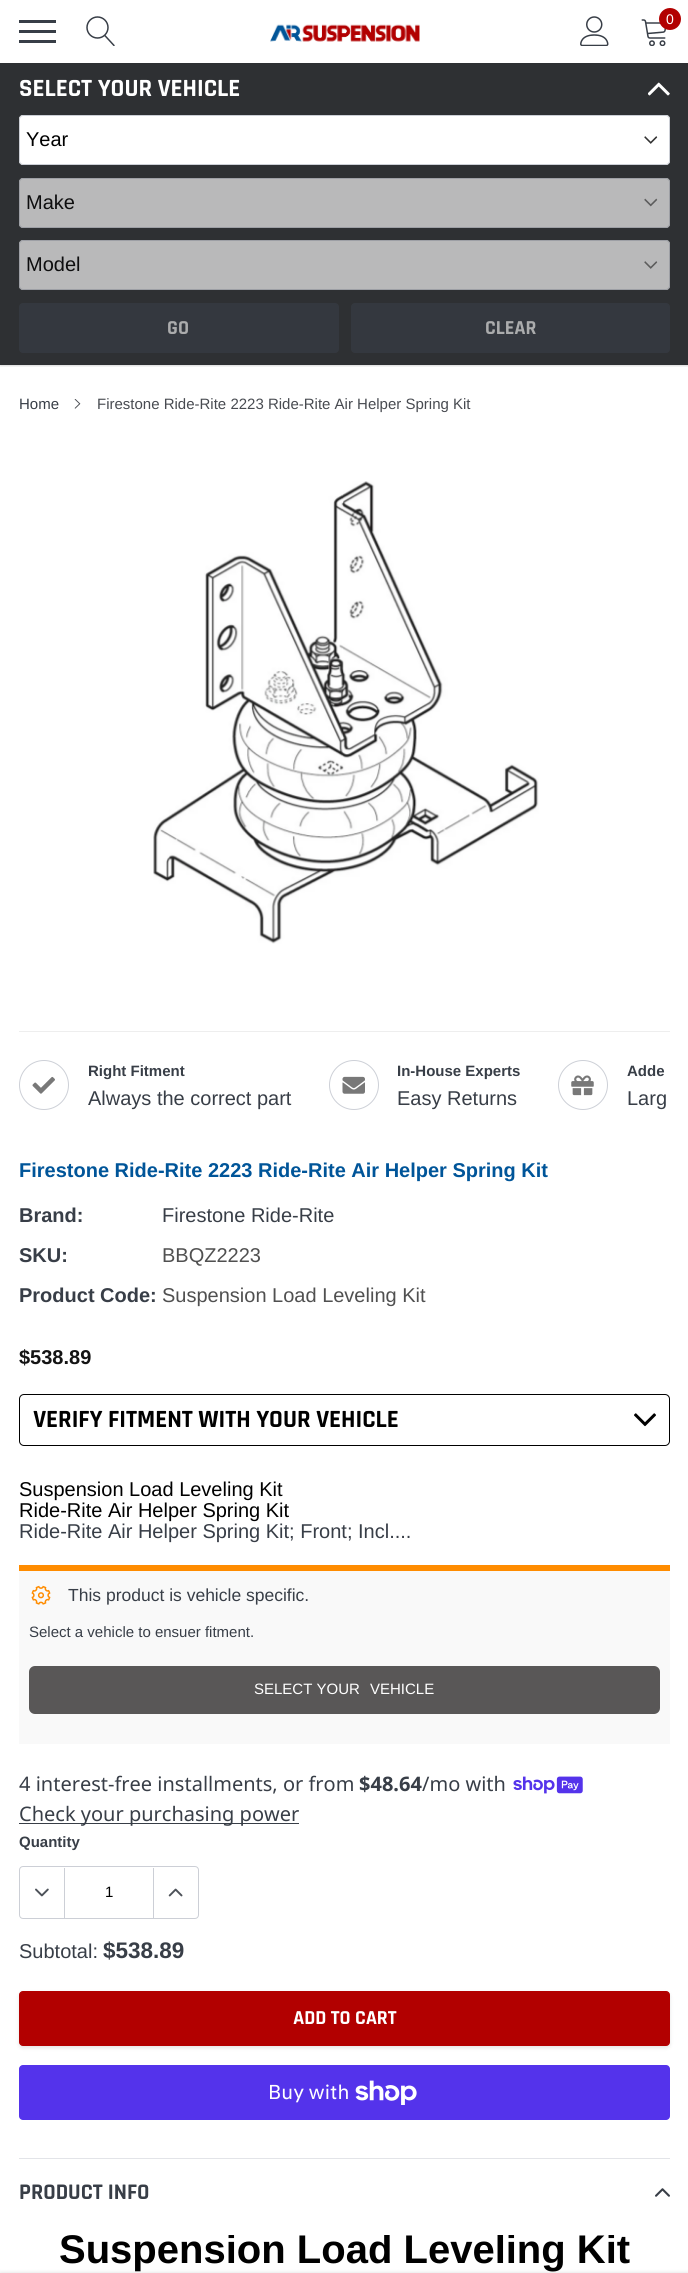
#include <cairo.h>
#include <math.h>
#include <stddef.h>


static void set_color(cairo_t *cr, unsigned color) {
    cairo_set_source_rgb(cr, (color >> 16) / 255.0, (color >> 8 & 255) / 255.0, (color & 255) / 255.0);
}

static void draw_text(cairo_t *cr, double x, double y, const char *s, const char *family, double size, int italic, int bold, unsigned color) {
    cairo_select_font_face(cr, family, italic ? CAIRO_FONT_SLANT_ITALIC : CAIRO_FONT_SLANT_NORMAL,
        bold ? CAIRO_FONT_WEIGHT_BOLD : CAIRO_FONT_WEIGHT_NORMAL);
    cairo_set_font_size(cr, size);
    set_color(cr, color);
    cairo_move_to(cr, x, y);
    cairo_show_text(cr, s);
}

static void fill_rect(cairo_t *cr, double x, double y, double w, double h, unsigned color) {
    set_color(cr, color);
    cairo_rectangle(cr, x, y, w, h);
    cairo_fill(cr);
}

static void rounded_rect(cairo_t *cr, double x, double y, double w, double h, double r) {
    cairo_new_sub_path(cr);
    cairo_arc(cr, x + w - r, y + h - r, r, 0, M_PI / 2);
    cairo_arc(cr, x + r, y + h - r, r, M_PI / 2, M_PI);
    cairo_arc(cr, x + r, y + r, r, M_PI, 1.5 * M_PI);
    cairo_arc(cr, x + w - r, y + r, r, 1.5 * M_PI, 2 * M_PI);
    cairo_close_path(cr);
}

static void draw_shadow(cairo_t *cr, double x, double y, double w, double h, double r, double blur, double alpha) {
    cairo_push_group_with_content(cr, CAIRO_CONTENT_ALPHA);
    cairo_set_operator(cr, CAIRO_OPERATOR_SOURCE);
    for (int i = 15; i >= -15 && fmin(w, h) + blur * i / 3 > 0; i -= 2) {
        double e = blur * i / 6;
        cairo_set_source_rgba(cr, 0, 0, 0, alpha * erfc((i - 1) / 8.5) / 2);
        rounded_rect(cr, x - e, y - e, w + 2 * e, h + 2 * e, fmax(0, fmin(r + e + blur * .6, fmin(w, h) / 2 + e)));
        cairo_fill(cr);
    }
    cairo_pattern_t *soft = cairo_pop_group(cr);
    cairo_mask(cr, soft);
    cairo_pattern_destroy(soft);
}

static void draw_image(cairo_t *cr, const char *path, double x, double y, double w, double h) {
    cairo_surface_t *image = cairo_image_surface_create_from_png(path);
    cairo_save(cr);
    cairo_set_source_surface(cr, image, x, y);
    cairo_rectangle(cr, x, y, w, h);
    cairo_fill(cr);
    cairo_restore(cr);
    cairo_surface_destroy(image);
}

int main(void) {
    cairo_surface_t *surface = cairo_image_surface_create(CAIRO_FORMAT_RGB24, 688, 2273);
    cairo_t *cr = cairo_create(surface);
    cairo_font_options_t *options = cairo_font_options_create();
    cairo_font_options_set_hint_metrics(options, CAIRO_HINT_METRICS_OFF);
    cairo_font_options_set_hint_style(options, CAIRO_HINT_STYLE_NONE);
    cairo_set_font_options(cr, options);
    cairo_set_miter_limit(cr, 4);
    set_color(cr, 0xFFFFFF);
    cairo_paint(cr);
    cairo_save(cr);
    cairo_rectangle(cr, 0, 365, 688, 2);
    cairo_clip(cr);
    set_color(cr, 0x000000);
    draw_shadow(cr, 0, 1, 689, 365, 0, 1, 0.15);
    cairo_restore(cr);
    fill_rect(cr, 19, 30, 37, 3, 0x383E47);
    fill_rect(cr, 19, 20, 37, 3, 0x383E47);
    fill_rect(cr, 19, 40, 37, 3, 0x383E47);
    draw_image(cr, "assets/img1.png", 86, 16, 29, 30);
    draw_image(cr, "assets/img2.png", 270, 24, 150, 18);
    draw_image(cr, "assets/img3.png", 580, 16, 29, 30);
    draw_image(cr, "assets/img4.png", 641, 19, 25, 27);
    set_color(cr, 0xB20000);
    cairo_arc(cr, 670, 19, 11, 0, 2 * M_PI);
    cairo_fill(cr);
    draw_text(cr, 666, 24, "0", "Arimo", 14, 0, 0, 0xFFFFFF);
    fill_rect(cr, 0, 63, 688, 302, 0x2E3033);
    draw_text(cr, 19, 96, "SELECT YOUR VEHICLE", "Rajdhani", 25, 0, 1, 0xFFFFFF);
    draw_image(cr, "assets/img5.png", 648, 82, 22, 14);
    rounded_rect(cr, 19, 115, 651, 50, 4);
    cairo_fill(cr);
    draw_image(cr, "assets/img6.png", 644, 136, 14, 8);
    rounded_rect(cr, 19.5, 115.5, 650, 49, 3.5);
    set_color(cr, 0xCCCFD6);
    cairo_set_line_width(cr, 1);
    cairo_stroke(cr);
    draw_text(cr, 26, 146, "Year", "Arimo", 20, 0, 0, 0x000000);
    set_color(cr, 0xB9B9BA);
    rounded_rect(cr, 19, 178, 651, 50, 4);
    cairo_fill(cr);
    draw_image(cr, "assets/img7.png", 644, 198, 14, 9);
    rounded_rect(cr, 19.5, 178.5, 650, 49, 3.5);
    set_color(cr, 0x9D9FA5);
    cairo_stroke(cr);
    draw_text(cr, 26, 209, "Make", "Arimo", 20, 0, 0, 0x0E0E0F);
    set_color(cr, 0xB9B9BA);
    rounded_rect(cr, 19, 240, 651, 50, 4);
    cairo_fill(cr);
    draw_image(cr, "assets/img8.png", 644, 261, 14, 8);
    rounded_rect(cr, 19.5, 240.5, 650, 49, 3.5);
    set_color(cr, 0x9D9FA5);
    cairo_stroke(cr);
    draw_text(cr, 26, 271, "Model", "Arimo", 20, 0, 0, 0x0E0E0F);
    set_color(cr, 0x34383F);
    rounded_rect(cr, 19.5, 303.5, 319, 49, 3.5);
    cairo_fill_preserve(cr);
    cairo_stroke(cr);
    draw_text(cr, 167, 334, "GO", "Rajdhani", 20, 0, 1, 0xABACAD);
    set_color(cr, 0x34383F);
    rounded_rect(cr, 351.5, 303.5, 318, 49, 3.5);
    cairo_fill_preserve(cr);
    cairo_stroke(cr);
    draw_text(cr, 485, 334, "CLEAR", "Rajdhani", 20, 0, 1, 0xABACAD);
    draw_text(cr, 19, 409, "Home", "Arimo", 15, 0, 0, 0x383E47);
    draw_image(cr, "assets/img9.png", 74, 399, 7, 10);
    draw_text(cr, 97, 409, "Firestone Ride-Rite 2223 Ride-Rite Air Helper Spring Kit", "Arimo", 15, 0, 0, 0x484B51);
    draw_image(cr, "assets/img10.png", 153, 481, 386, 463);
    fill_rect(cr, 19, 1031, 651, 1, 0xEEEEEE);
    cairo_arc(cr, 44, 1085, 24.5, 0, 2 * M_PI);
    set_color(cr, 0xCDD0D7);
    cairo_stroke(cr);
    draw_image(cr, "assets/img11.png", 32, 1076, 23, 18);
    draw_text(cr, 88, 1076, "Right Fitment", "Arimo", 15, 0, 1, 0x383E47);
    draw_text(cr, 88, 1105, "Always the correct part", "Arimo", 20, 0, 0, 0x383E47);
    cairo_new_path(cr);
    cairo_arc(cr, 354, 1085, 24.5, 0, 2 * M_PI);
    set_color(cr, 0xCDD0D7);
    cairo_stroke(cr);
    draw_image(cr, "assets/img12.png", 342, 1076, 23, 18);
    draw_text(cr, 397, 1076, "In-House Experts", "Arimo", 15, 0, 1, 0x383E47);
    draw_text(cr, 397, 1105, "Easy Returns", "Arimo", 20, 0, 0, 0x383E47);
    cairo_new_path(cr);
    cairo_arc(cr, 583, 1085, 24.5, 0, 2 * M_PI);
    set_color(cr, 0xCDD0D7);
    cairo_stroke(cr);
    draw_image(cr, "assets/img13.png", 571, 1075, 23, 21);
    draw_text(cr, 627, 1076, "Adde", "Arimo", 15, 0, 1, 0x383E47);
    draw_text(cr, 627, 1105, "Larg", "Arimo", 20, 0, 0, 0x383E47);
    draw_text(cr, 19, 1177, "Firestone Ride-Rite 2223 Ride-Rite Air Helper Spring Kit", "Arimo", 20, 0, 1, 0x005599);
    draw_text(cr, 19, 1222, "Brand:", "Arimo", 20, 0, 1, 0x383E47);
    draw_text(cr, 162, 1222, "Firestone Ride-Rite", "Arimo", 20, 0, 0, 0x383E47);
    draw_text(cr, 19, 1262, "SKU:", "Arimo", 20, 0, 1, 0x383E47);
    draw_text(cr, 162, 1262, "BBQZ2223", "Arimo", 20, 0, 0, 0x505050);
    draw_text(cr, 19, 1302, "Product Code:", "Arimo", 20, 0, 1, 0x383E47);
    draw_text(cr, 162, 1302, "Suspension Load Leveling Kit", "Arimo", 20, 0, 0, 0x505050);
    draw_text(cr, 19, 1364, "$538.89", "Arimo", 20, 0, 1, 0x141414);
    rounded_rect(cr, 19.5, 1394.5, 650, 51, 4.5);
    set_color(cr, 0x000000);
    cairo_stroke(cr);
    draw_text(cr, 33, 1427, "VERIFY FITMENT WITH YOUR VEHICLE", "Rajdhani", 25, 0, 1, 0x000000);
    draw_image(cr, "assets/img14.png", 634, 1413, 22, 14);
    draw_text(cr, 19, 1496, "Suspension Load Leveling Kit", "Arimo", 20, 0, 0, 0x000000);
    draw_text(cr, 19, 1517, "Ride-Rite Air Helper Spring Kit", "Arimo", 20, 0, 0, 0x000000);
    draw_text(cr, 19, 1538, "Ride-Rite Air Helper Spring Kit; Front; Incl....", "Arimo", 20, 0, 0, 0x383E47);
    fill_rect(cr, 19, 1571, 651, 173, 0xF9F9F9);
    fill_rect(cr, 19, 1565, 651, 6, 0xFF8C00);
    draw_image(cr, "assets/img15.png", 31, 1585, 20, 20);
    draw_text(cr, 68, 1601, "This product is vehicle specific.", "Arimo", 17.5, 0, 0, 0x383E47);
    draw_text(cr, 29, 1637, "Select a vehicle to ensuer fitment.", "Arimo", 15, 0, 0, 0x383E47);
    set_color(cr, 0x595757);
    rounded_rect(cr, 29, 1666, 631, 48, 6);
    cairo_fill(cr);
    draw_text(cr, 254, 1694, "SELECT YOUR", "Arimo", 15, 0, 0, 0xFFFFFF);
    draw_text(cr, 370, 1694, "VEHICLE", "Arimo", 15, 0, 0, 0xFFFFFF);
    draw_text(cr, 19, 1791, "4 interest-free installments, or from", "Noto Sans", 20, 0, 0, 0x383E47);
    draw_text(cr, 359, 1791, "$48.64", "Noto Sans", 20, 0, 1, 0x383E47);
    draw_text(cr, 422, 1791, "/mo with", "Noto Sans", 20, 0, 0, 0x383E47);
    draw_image(cr, "assets/img16.png", 513, 1776, 70, 18);
    fill_rect(cr, 19, 1823, 280, 1, 0x383E47);
    draw_text(cr, 19, 1821, "Check your purchasing power", "Noto Sans", 20, 0, 0, 0x383E47);
    draw_text(cr, 19, 1847, "Quantity", "Arimo", 15, 0, 1, 0x383E47);
    rounded_rect(cr, 19.5, 1866.5, 179, 52, 3.5);
    set_color(cr, 0xCCCFD6);
    cairo_stroke(cr);
    fill_rect(cr, 64, 1868, 1, 50, 0xCCCFD6);
    draw_image(cr, "assets/img17.png", 35, 1888, 14, 9);
    draw_text(cr, 105, 1897, "1", "Arimo", 15, 0, 0, 0x000000);
    fill_rect(cr, 153, 1868, 1, 50, 0xCCCFD6);
    draw_image(cr, "assets/img18.png", 168, 1888, 15, 9);
    draw_text(cr, 19, 1958, "Subtotal:", "Arimo", 20, 0, 0, 0x383E47);
    draw_text(cr, 103, 1958, "$538.89", "Arimo", 22.5, 0, 1, 0x383E47);
    set_color(cr, 0x000000);
    draw_shadow(cr, 19, 1993, 651, 55, 4, 2, 0.1);
    set_color(cr, 0xB20000);
    rounded_rect(cr, 19.5, 1991.5, 650, 54, 3.5);
    cairo_fill_preserve(cr);
    cairo_stroke(cr);
    draw_text(cr, 293, 2024, "ADD TO CART", "Rajdhani", 20, 0, 1, 0xFFFFFF);
    set_color(cr, 0x5433EB);
    rounded_rect(cr, 19, 2065, 651, 55, 4);
    cairo_fill(cr);
    draw_text(cr, 268, 2099, "Buy with", "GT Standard", 20, 0, 0, 0xFFFFFF);
    draw_image(cr, "assets/img19.png", 355, 2080, 62, 25);
    set_color(cr, 0x000000);
    draw_shadow(cr, 0, 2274, 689, 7, 0, 2.5, 0.2);
    fill_rect(cr, 19, 2158, 651, 1, 0xE2E4E8);
    draw_text(cr, 19, 2199, "PRODUCT INFO", "Rajdhani", 22.5, 0, 1, 0x383E47);
    draw_image(cr, "assets/img20.png", 655, 2188, 15, 9);
    cairo_save(cr);
    cairo_rectangle(cr, 19, 2235, 651, 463);
    cairo_clip(cr);
    draw_text(cr, 59, 2263, "Suspension Load Leveling Kit", "Arimo", 40, 0, 1, 0x000000);
    cairo_restore(cr);
    cairo_surface_write_to_png(surface, "output.png");
    cairo_font_options_destroy(options);
    cairo_destroy(cr);
    cairo_surface_destroy(surface);
    return 0;
}
